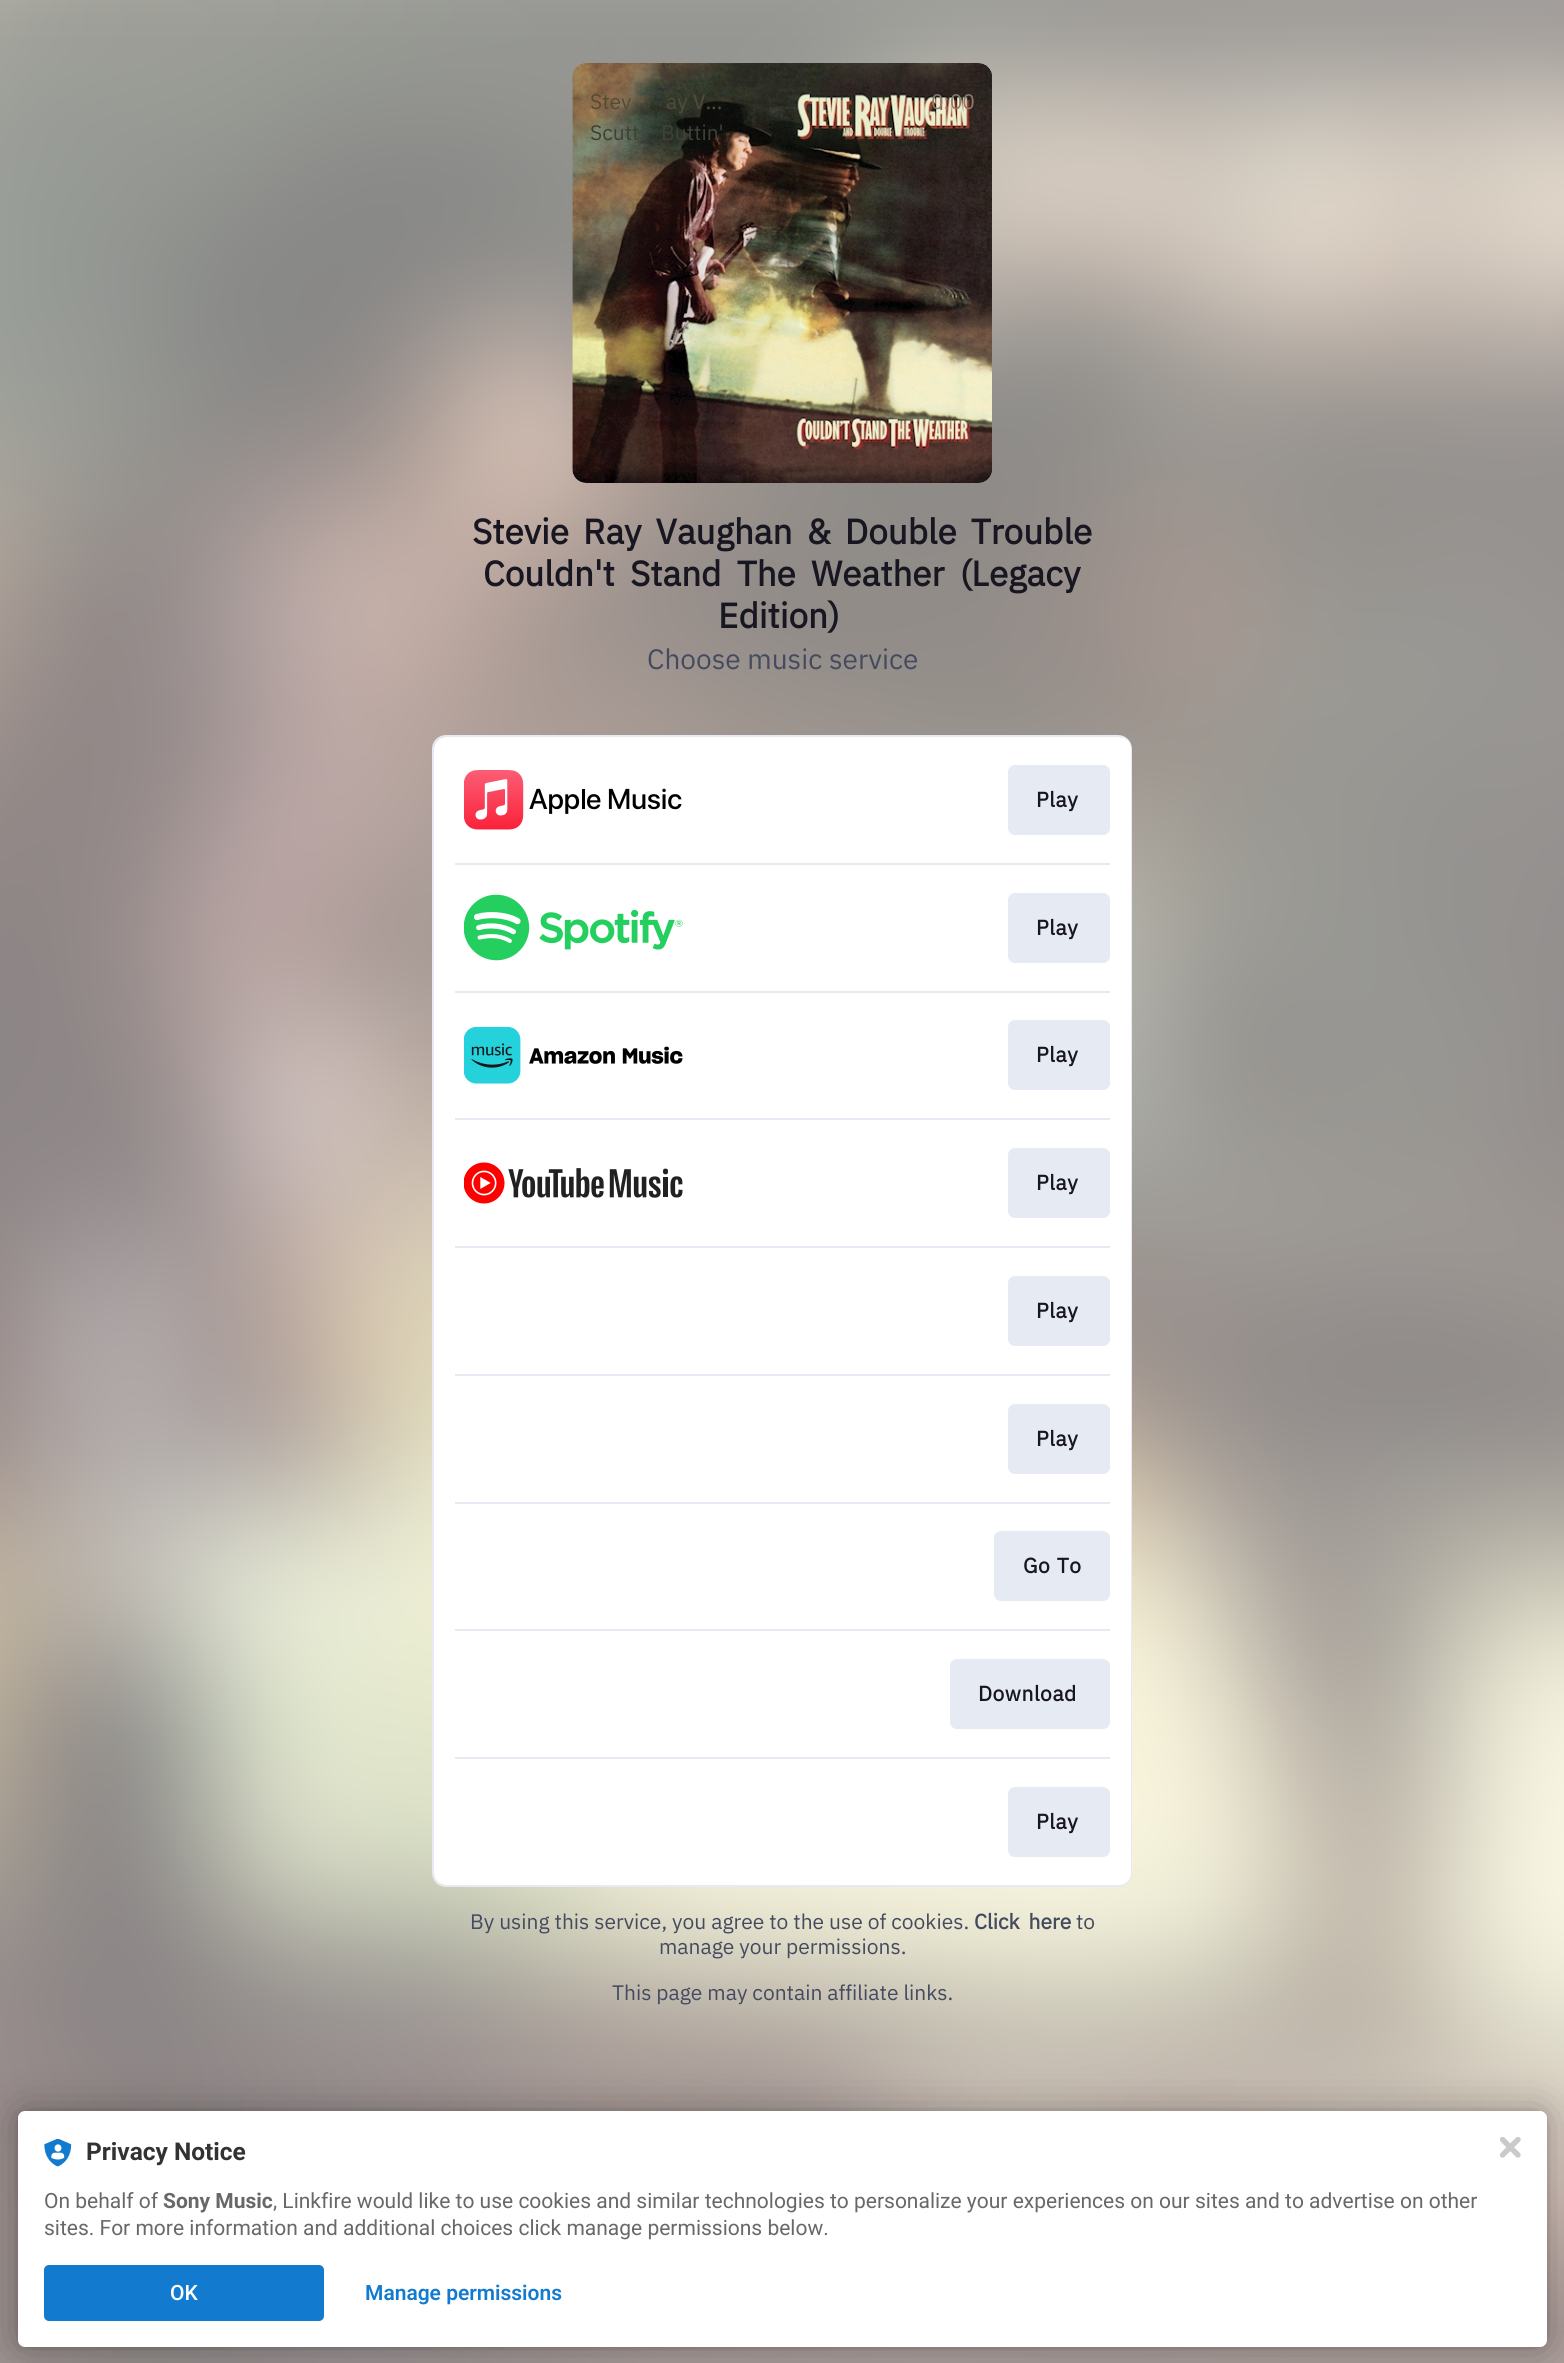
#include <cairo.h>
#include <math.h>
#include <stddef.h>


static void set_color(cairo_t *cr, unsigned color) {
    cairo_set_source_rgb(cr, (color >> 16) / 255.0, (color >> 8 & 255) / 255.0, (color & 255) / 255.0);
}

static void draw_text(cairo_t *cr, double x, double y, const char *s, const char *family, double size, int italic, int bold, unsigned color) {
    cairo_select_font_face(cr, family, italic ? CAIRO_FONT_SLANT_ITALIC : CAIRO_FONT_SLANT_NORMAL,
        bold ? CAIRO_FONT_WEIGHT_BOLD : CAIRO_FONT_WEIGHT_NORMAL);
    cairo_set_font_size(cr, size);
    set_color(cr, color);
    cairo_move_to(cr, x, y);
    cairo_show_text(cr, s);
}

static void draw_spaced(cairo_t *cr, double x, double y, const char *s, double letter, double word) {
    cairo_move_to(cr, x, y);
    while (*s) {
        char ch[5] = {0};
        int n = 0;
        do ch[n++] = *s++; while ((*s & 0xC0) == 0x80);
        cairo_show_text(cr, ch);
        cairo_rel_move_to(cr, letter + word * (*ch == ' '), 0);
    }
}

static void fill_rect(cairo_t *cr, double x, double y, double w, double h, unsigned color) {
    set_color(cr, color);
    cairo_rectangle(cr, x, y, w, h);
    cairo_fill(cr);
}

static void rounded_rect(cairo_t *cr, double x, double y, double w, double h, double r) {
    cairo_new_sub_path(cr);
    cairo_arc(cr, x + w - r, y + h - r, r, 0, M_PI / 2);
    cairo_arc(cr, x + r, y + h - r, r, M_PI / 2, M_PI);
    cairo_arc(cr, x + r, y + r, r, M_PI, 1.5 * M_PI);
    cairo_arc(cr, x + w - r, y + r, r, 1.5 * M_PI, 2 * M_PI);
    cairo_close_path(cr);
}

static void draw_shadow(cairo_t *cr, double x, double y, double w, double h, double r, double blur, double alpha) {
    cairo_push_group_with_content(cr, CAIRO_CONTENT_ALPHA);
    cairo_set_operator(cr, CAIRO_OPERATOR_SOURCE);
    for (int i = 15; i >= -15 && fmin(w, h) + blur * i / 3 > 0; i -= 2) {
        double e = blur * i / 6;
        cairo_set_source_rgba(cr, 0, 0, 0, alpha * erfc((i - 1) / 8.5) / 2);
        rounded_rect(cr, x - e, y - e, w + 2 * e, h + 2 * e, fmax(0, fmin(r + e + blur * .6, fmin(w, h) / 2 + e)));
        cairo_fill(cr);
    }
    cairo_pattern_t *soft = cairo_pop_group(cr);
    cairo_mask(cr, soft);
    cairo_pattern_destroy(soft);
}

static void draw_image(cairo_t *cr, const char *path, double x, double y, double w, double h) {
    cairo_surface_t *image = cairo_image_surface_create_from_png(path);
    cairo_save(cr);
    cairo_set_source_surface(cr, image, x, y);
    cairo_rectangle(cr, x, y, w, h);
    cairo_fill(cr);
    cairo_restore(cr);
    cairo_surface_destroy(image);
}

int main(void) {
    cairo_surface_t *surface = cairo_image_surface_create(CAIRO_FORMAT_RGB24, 1564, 2363);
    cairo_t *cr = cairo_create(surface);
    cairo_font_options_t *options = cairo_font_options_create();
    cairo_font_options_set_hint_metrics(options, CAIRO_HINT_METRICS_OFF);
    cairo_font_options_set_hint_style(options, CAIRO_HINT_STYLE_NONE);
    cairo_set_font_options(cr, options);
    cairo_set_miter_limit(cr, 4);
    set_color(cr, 0xFFFFFF);
    cairo_paint(cr);
    draw_image(cr, "assets/img1.png", 0, 0, 1564, 2363);
    draw_image(cr, "assets/img2.png", 572, 63, 420, 420);
    draw_text(cr, 590, 109, "Stev", "IBM Plex Sans", 21, 0, 0, 0x534B38);
    draw_text(cr, 666, 109, "ay V…", "IBM Plex Sans", 21, 0, 0, 0x534B38);
    draw_text(cr, 590, 140, "Scutt", "IBM Plex Sans", 21, 0, 0, 0x3D4236);
    draw_text(cr, 661, 140, "Buttin'", "IBM Plex Sans", 21, 0, 0, 0x3D4236);
    draw_text(cr, 931, 109, "0:00", "IBM Plex Sans", 21, 0, 0, 0x8B7C6B);
    cairo_select_font_face(cr, "IBM Plex Sans", CAIRO_FONT_SLANT_NORMAL, CAIRO_FONT_WEIGHT_BOLD);
    cairo_set_font_size(cr, 35);
    set_color(cr, 0x181721);
    draw_spaced(cr, 472, 544, "Stevie Ray Vaughan & Double Trouble", 0, 5.75);
    draw_spaced(cr, 483, 586, "Couldn't Stand The Weather (Legacy", 0, 7);
    draw_text(cr, 718, 628, "Edition)", "IBM Plex Sans", 35, 0, 1, 0x181721);
    draw_text(cr, 647, 669, "Choose music service", "IBM Plex Sans", 28, 0, 0, 0x454B5F);
    rounded_rect(cr, 433, 736, 698, 1150, 13);
    set_color(cr, 0xE6EAF2);
    cairo_stroke(cr);
    set_color(cr, 0xFFFFFF);
    rounded_rect(cr, 434, 737, 697, 1148, 12);
    cairo_fill(cr);
    draw_image(cr, "assets/img3.png", 464, 770, 218, 60);
    set_color(cr, 0xE6EAF2);
    rounded_rect(cr, 1008, 765, 102, 70, 7);
    cairo_fill(cr);
    cairo_select_font_face(cr, "IBM Plex Sans", CAIRO_FONT_SLANT_NORMAL, CAIRO_FONT_WEIGHT_BOLD);
    cairo_set_font_size(cr, 21);
    set_color(cr, 0x181721);
    draw_spaced(cr, 1036, 807, "Play", 0.5, 0);
    fill_rect(cr, 455, 863, 655, 2, 0xE6EAF2);
    draw_image(cr, "assets/img4.png", 464, 894, 219, 67);
    rounded_rect(cr, 1008, 893, 102, 70, 7);
    cairo_fill(cr);
    set_color(cr, 0x181721);
    draw_spaced(cr, 1036, 935, "Play", 0.5, 0);
    fill_rect(cr, 455, 991, 655, 2, 0xE6EAF2);
    draw_image(cr, "assets/img5.png", 464, 1026, 219, 58);
    rounded_rect(cr, 1008, 1020, 102, 70, 7);
    cairo_fill(cr);
    set_color(cr, 0x181721);
    draw_spaced(cr, 1036, 1062, "Play", 0.5, 0);
    fill_rect(cr, 455, 1118, 655, 2, 0xE6EAF2);
    draw_image(cr, "assets/img6.png", 464, 1162, 219, 42);
    rounded_rect(cr, 1008, 1148, 102, 70, 7);
    cairo_fill(cr);
    set_color(cr, 0x181721);
    draw_spaced(cr, 1036, 1190, "Play", 0.5, 0);
    fill_rect(cr, 455, 1246, 655, 2, 0xE6EAF2);
    rounded_rect(cr, 1008, 1276, 102, 70, 7);
    cairo_fill(cr);
    set_color(cr, 0x181721);
    draw_spaced(cr, 1036, 1318, "Play", 0.5, 0);
    fill_rect(cr, 455, 1374, 655, 2, 0xE6EAF2);
    rounded_rect(cr, 1008, 1404, 102, 70, 7);
    cairo_fill(cr);
    set_color(cr, 0x181721);
    draw_spaced(cr, 1036, 1446, "Play", 0.5, 0);
    fill_rect(cr, 455, 1502, 655, 2, 0xE6EAF2);
    rounded_rect(cr, 994, 1531, 116, 70, 7);
    cairo_fill(cr);
    set_color(cr, 0x181721);
    draw_spaced(cr, 1023, 1573, "Go To", 0.5, 1);
    fill_rect(cr, 455, 1629, 655, 2, 0xE6EAF2);
    rounded_rect(cr, 950, 1659, 160, 70, 7);
    cairo_fill(cr);
    set_color(cr, 0x181721);
    draw_spaced(cr, 978, 1701, "Download", 0.5, 0);
    fill_rect(cr, 455, 1757, 655, 2, 0xE6EAF2);
    rounded_rect(cr, 1008, 1787, 102, 70, 7);
    cairo_fill(cr);
    set_color(cr, 0x181721);
    draw_spaced(cr, 1036, 1829, "Play", 0.5, 0);
    draw_text(cr, 470, 1929, "By using this service, you agree to the use of cookies.", "IBM Plex Sans", 21, 0, 0, 0x454B5F);
    cairo_select_font_face(cr, "IBM Plex Sans", CAIRO_FONT_SLANT_NORMAL, CAIRO_FONT_WEIGHT_BOLD);
    draw_spaced(cr, 974, 1929, "Click here", 0, 4);
    draw_text(cr, 1076, 1929, "to", "IBM Plex Sans", 21, 0, 0, 0x454B5F);
    draw_text(cr, 659, 1954, "manage your permissions.", "IBM Plex Sans", 21, 0, 0, 0x454B5F);
    draw_text(cr, 612, 2000, "This page may contain affiliate links.", "IBM Plex Sans", 21, 0, 0, 0x454B5F);
    set_color(cr, 0x000000);
    draw_shadow(cr, 18, 2111, 1529, 236, 7, 3.5, 0.12);
    draw_shadow(cr, 18, 2111, 1529, 236, 7, 21, 0.3);
    set_color(cr, 0xFFFFFF);
    rounded_rect(cr, 18, 2111, 1529, 236, 7);
    cairo_fill(cr);
    draw_image(cr, "assets/img7.png", 44, 2139, 28, 28);
    draw_text(cr, 86, 2160, "Privacy Notice", "Roboto", 24.5, 0, 1, 0x323232);
    draw_text(cr, 44, 2208, "On behalf of", "Roboto", 21, 0, 0, 0x686868);
    draw_text(cr, 163, 2208, "Sony Music", "Roboto", 21, 0, 1, 0x686868);
    draw_text(cr, 273, 2208, ", Linkfire would like to use cookies and similar technologies to personalize your experiences on our sites and to advertise on other", "Roboto", 21, 0, 0, 0x686868);
    draw_text(cr, 44, 2235, "sites. For more information and additional choices click manage permissions below.", "Roboto", 21, 0, 0, 0x686868);
    set_color(cr, 0x137BCF);
    rounded_rect(cr, 44, 2265, 280, 56, 5);
    cairo_fill(cr);
    draw_text(cr, 170, 2300, "OK", "Roboto Medium", 21, 0, 0, 0xFFFFFF);
    draw_text(cr, 365, 2300, "Manage permissions", "Roboto SemiBold", 21, 0, 0, 0x137BCF);
    draw_image(cr, "assets/img8.png", 1500, 2137, 21, 21);
    cairo_surface_write_to_png(surface, "output.png");
    cairo_font_options_destroy(options);
    cairo_destroy(cr);
    cairo_surface_destroy(surface);
    return 0;
}
